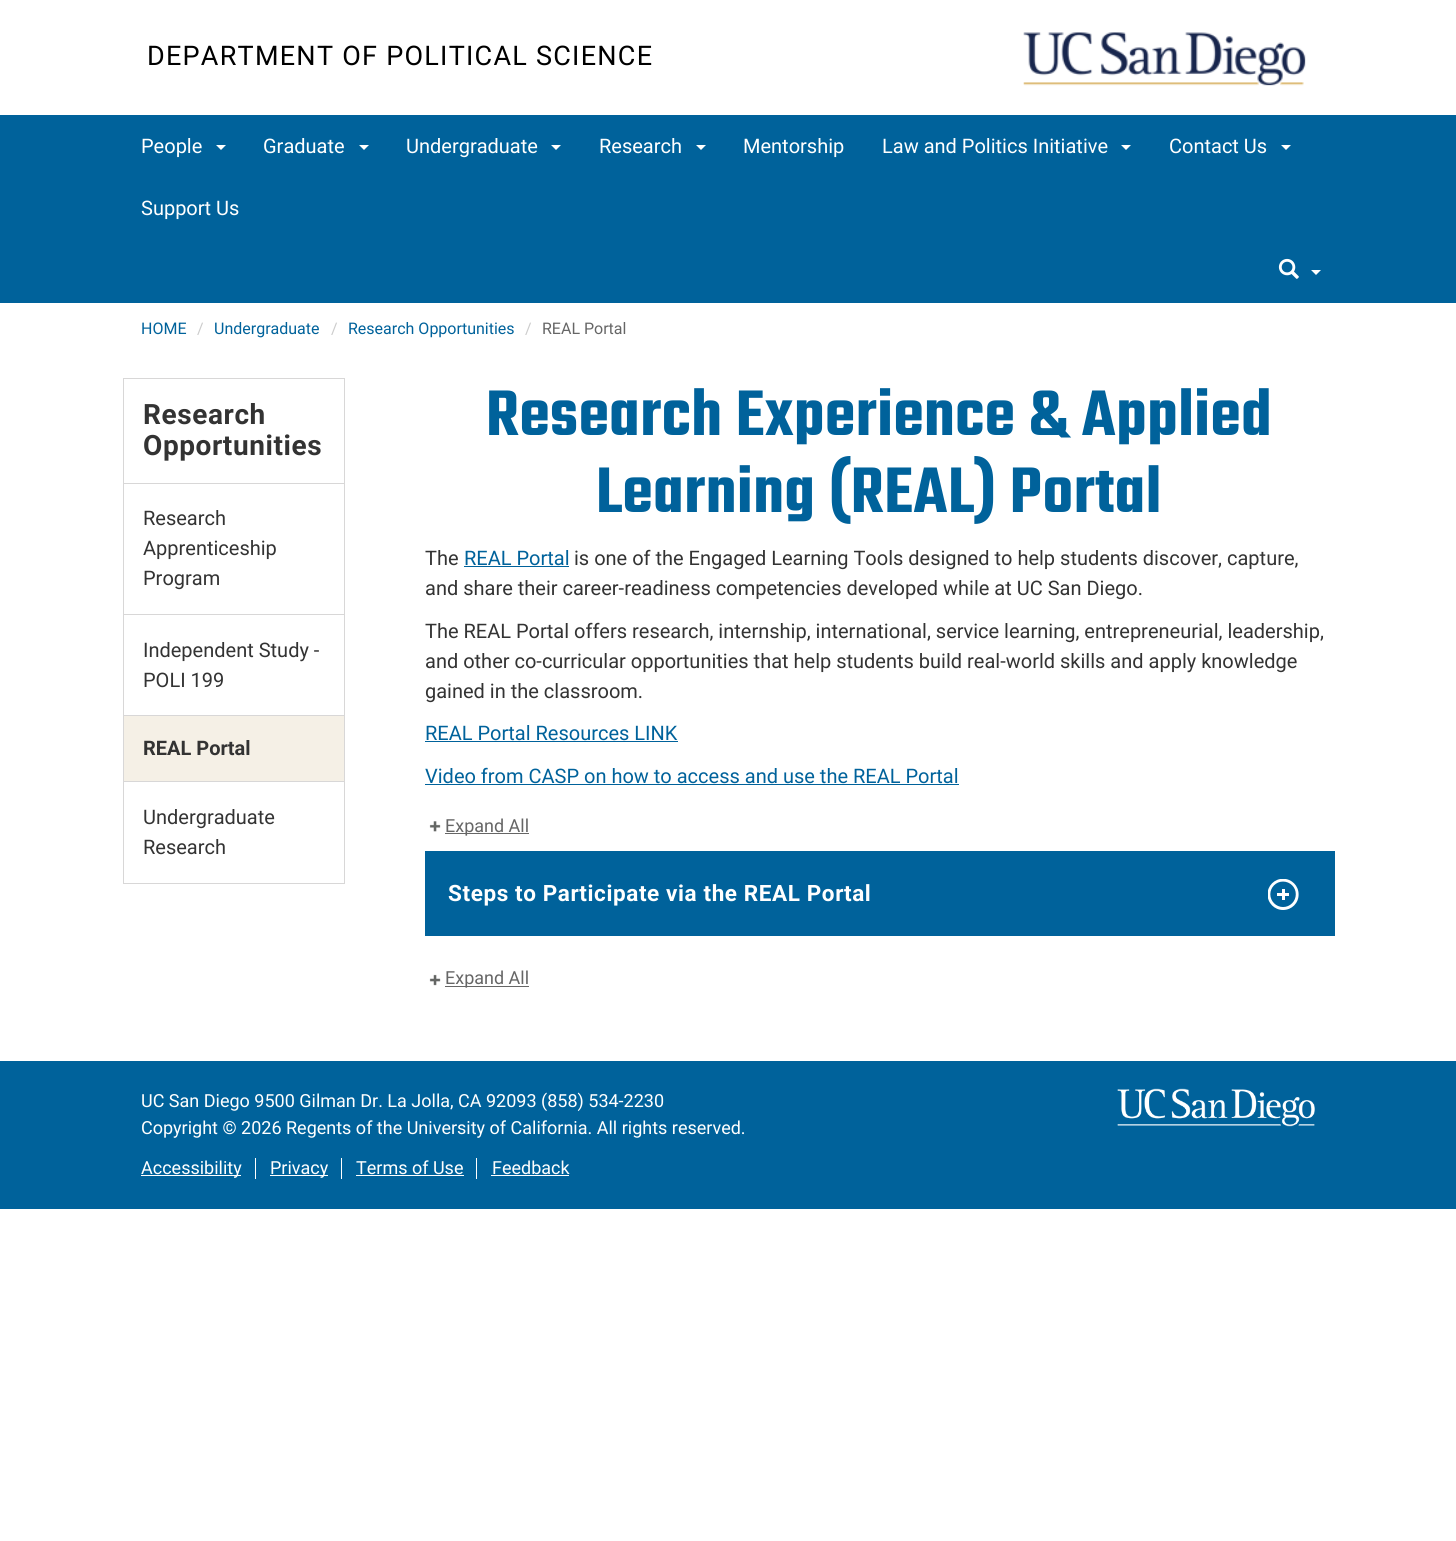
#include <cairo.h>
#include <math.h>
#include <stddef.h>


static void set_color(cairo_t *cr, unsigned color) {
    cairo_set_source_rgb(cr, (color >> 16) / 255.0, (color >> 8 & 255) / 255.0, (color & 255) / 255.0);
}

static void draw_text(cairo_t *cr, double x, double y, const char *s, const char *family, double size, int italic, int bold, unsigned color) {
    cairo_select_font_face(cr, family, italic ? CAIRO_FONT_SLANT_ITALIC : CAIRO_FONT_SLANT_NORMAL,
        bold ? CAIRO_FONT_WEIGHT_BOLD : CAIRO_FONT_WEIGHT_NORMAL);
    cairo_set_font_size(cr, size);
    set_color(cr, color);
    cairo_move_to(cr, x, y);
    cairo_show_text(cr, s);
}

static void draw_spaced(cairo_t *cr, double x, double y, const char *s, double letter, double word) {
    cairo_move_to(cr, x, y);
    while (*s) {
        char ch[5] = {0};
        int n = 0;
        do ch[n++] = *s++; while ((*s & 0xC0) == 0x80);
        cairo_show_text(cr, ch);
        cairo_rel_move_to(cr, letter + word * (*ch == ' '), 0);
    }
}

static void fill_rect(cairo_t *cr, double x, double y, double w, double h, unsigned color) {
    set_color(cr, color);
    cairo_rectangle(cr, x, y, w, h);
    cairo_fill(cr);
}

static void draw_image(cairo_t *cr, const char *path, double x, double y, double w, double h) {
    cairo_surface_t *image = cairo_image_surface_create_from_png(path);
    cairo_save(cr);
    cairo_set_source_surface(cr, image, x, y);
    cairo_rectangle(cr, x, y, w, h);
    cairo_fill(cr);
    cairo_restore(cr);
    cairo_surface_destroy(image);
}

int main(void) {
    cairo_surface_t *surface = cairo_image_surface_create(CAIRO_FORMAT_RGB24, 1456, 1541);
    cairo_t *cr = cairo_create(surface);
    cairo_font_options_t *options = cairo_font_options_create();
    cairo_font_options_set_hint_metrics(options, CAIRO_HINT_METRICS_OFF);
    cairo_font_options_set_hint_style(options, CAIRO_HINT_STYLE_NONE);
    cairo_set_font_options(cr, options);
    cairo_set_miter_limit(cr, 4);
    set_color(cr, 0xFFFFFF);
    cairo_paint(cr);
    cairo_select_font_face(cr, "Roboto", CAIRO_FONT_SLANT_NORMAL, CAIRO_FONT_WEIGHT_NORMAL);
    cairo_set_font_size(cr, 27);
    set_color(cr, 0x000000);
    draw_spaced(cr, 147, 65, "DEPARTMENT OF POLITICAL SCIENCE", 1.25, 0);
    draw_image(cr, "assets/img1.png", 1023, 32, 283, 54);
    fill_rect(cr, 0, 115, 1456, 188, 0x00629B);
    draw_text(cr, 141, 153, "People", "Roboto", 20, 0, 0, 0xFFFFFF);
    cairo_new_path(cr);
    cairo_move_to(cr, 216, 145);
    cairo_line_to(cr, 226, 145);
    cairo_line_to(cr, 221, 150);
    cairo_close_path(cr);
    cairo_fill(cr);
    draw_text(cr, 263, 153, "Graduate", "Roboto", 20, 0, 0, 0xFFFFFF);
    cairo_new_path(cr);
    cairo_move_to(cr, 359, 145);
    cairo_line_to(cr, 369, 145);
    cairo_line_to(cr, 364, 150);
    cairo_close_path(cr);
    cairo_fill(cr);
    draw_text(cr, 406, 153, "Undergraduate", "Roboto", 20, 0, 0, 0xFFFFFF);
    cairo_new_path(cr);
    cairo_move_to(cr, 551, 145);
    cairo_line_to(cr, 561, 145);
    cairo_line_to(cr, 556, 150);
    cairo_close_path(cr);
    cairo_fill(cr);
    draw_text(cr, 599, 153, "Research", "Roboto", 20, 0, 0, 0xFFFFFF);
    cairo_new_path(cr);
    cairo_move_to(cr, 696, 145);
    cairo_line_to(cr, 706, 145);
    cairo_line_to(cr, 701, 150);
    cairo_close_path(cr);
    cairo_fill(cr);
    draw_text(cr, 743, 153, "Mentorship", "Roboto", 20, 0, 0, 0xFFFFFF);
    draw_text(cr, 882, 153, "Law and Politics Initiative", "Roboto", 20, 0, 0, 0xFFFFFF);
    cairo_new_path(cr);
    cairo_move_to(cr, 1121, 145);
    cairo_line_to(cr, 1131, 145);
    cairo_line_to(cr, 1126, 150);
    cairo_close_path(cr);
    cairo_fill(cr);
    draw_text(cr, 1169, 153, "Contact Us", "Roboto", 20, 0, 0, 0xFFFFFF);
    cairo_new_path(cr);
    cairo_move_to(cr, 1281, 145);
    cairo_line_to(cr, 1291, 145);
    cairo_line_to(cr, 1286, 150);
    cairo_close_path(cr);
    cairo_fill(cr);
    draw_text(cr, 141, 215, "Support Us", "Roboto", 20, 0, 0, 0xFFFFFF);
    draw_image(cr, "assets/img2.png", 1278, 258, 21, 21);
    cairo_new_path(cr);
    cairo_move_to(cr, 1311, 270);
    cairo_line_to(cr, 1321, 270);
    cairo_line_to(cr, 1316, 275);
    cairo_close_path(cr);
    cairo_fill(cr);
    draw_text(cr, 141, 334, "HOME", "Roboto", 16, 0, 0, 0x00629B);
    draw_text(cr, 197, 334, "/", "Roboto", 16, 0, 0, 0xCCCCCC);
    draw_text(cr, 214, 334, "Undergraduate", "Roboto", 16, 0, 0, 0x00629B);
    draw_text(cr, 331, 334, "/", "Roboto", 16, 0, 0, 0xCCCCCC);
    draw_text(cr, 348, 334, "Research Opportunities", "Roboto", 16, 0, 0, 0x00629B);
    draw_text(cr, 525, 334, "/", "Roboto", 16, 0, 0, 0xCCCCCC);
    draw_text(cr, 542, 334, "REAL Portal", "Roboto", 16, 0, 0, 0x666666);
    cairo_rectangle(cr, 123.5, 378.5, 221, 505);
    set_color(cr, 0xD8D7D7);
    cairo_set_line_width(cr, 1);
    cairo_stroke(cr);
    cairo_select_font_face(cr, "Roboto", CAIRO_FONT_SLANT_NORMAL, CAIRO_FONT_WEIGHT_BOLD);
    cairo_set_font_size(cr, 28);
    set_color(cr, 0x333333);
    draw_spaced(cr, 143, 424, "Research", 0.6, 0);
    draw_spaced(cr, 143, 455, "Opportunities", 0.6, 0);
    fill_rect(cr, 124, 483, 220, 1, 0xD8D7D7);
    draw_text(cr, 143, 525, "Research", "Roboto", 20, 0, 0, 0x333333);
    draw_text(cr, 143, 555, "Apprenticeship", "Roboto", 20, 0, 0, 0x333333);
    draw_text(cr, 143, 585, "Program", "Roboto", 20, 0, 0, 0x333333);
    fill_rect(cr, 124, 614, 220, 1, 0xD8D7D7);
    draw_text(cr, 143, 657, "Independent Study -", "Roboto", 20, 0, 0, 0x333333);
    draw_text(cr, 143, 687, "POLI 199", "Roboto", 20, 0, 0, 0x333333);
    fill_rect(cr, 124, 716, 220, 65, 0xF5F0E6);
    fill_rect(cr, 124, 715, 220, 1, 0xD8D7D7);
    draw_text(cr, 143, 755, "REAL Portal", "Roboto", 20, 0, 1, 0x333333);
    fill_rect(cr, 124, 781, 220, 1, 0xD8D7D7);
    draw_text(cr, 143, 824, "Undergraduate", "Roboto", 20, 0, 0, 0x333333);
    draw_text(cr, 143, 854, "Research", "Roboto", 20, 0, 0, 0x333333);
    cairo_select_font_face(cr, "Teko SemiBold", CAIRO_FONT_SLANT_NORMAL, CAIRO_FONT_WEIGHT_NORMAL);
    cairo_set_font_size(cr, 70);
    set_color(cr, 0x00629B);
    draw_spaced(cr, 486, 435, "Research Experience & Applied", 0.6, 0);
    draw_spaced(cr, 596, 512, "Learning (REAL) Portal", 0.6, 0);
    draw_text(cr, 425, 565, "The", "Roboto", 20, 0, 0, 0x333333);
    draw_text(cr, 464, 565, "REAL Portal", "Roboto", 20, 0, 0, 0x00629B);
    fill_rect(cr, 464, 566, 105, 1, 0x00629B);
    draw_text(cr, 574, 565, "is one of the Engaged Learning Tools designed to help students discover, capture,", "Roboto", 20, 0, 0, 0x333333);
    draw_text(cr, 425, 595, "and share their career-readiness competencies developed while at UC San Diego.", "Roboto", 20, 0, 0, 0x333333);
    draw_text(cr, 425, 638, "The REAL Portal offers research, internship, international, service learning, entrepreneurial, leadership,", "Roboto", 20, 0, 0, 0x333333);
    draw_text(cr, 425, 668, "and other co-curricular opportunities that help students build real-world skills and apply knowledge", "Roboto", 20, 0, 0, 0x333333);
    draw_text(cr, 425, 698, "gained in the classroom.", "Roboto", 20, 0, 0, 0x333333);
    draw_text(cr, 425, 740, "REAL Portal Resources LINK", "Roboto", 20, 0, 0, 0x00629B);
    fill_rect(cr, 425, 741, 253, 1, 0x00629B);
    draw_text(cr, 425, 783, "Video from CASP on how to access and use the REAL Portal", "Roboto", 20, 0, 0, 0x00629B);
    fill_rect(cr, 425, 784, 534, 1, 0x00629B);
    draw_image(cr, "assets/img3.png", 429, 821, 12, 11);
    fill_rect(cr, 445, 833, 84, 1, 0x666666);
    draw_text(cr, 445, 832, "Expand All", "Roboto", 18, 0, 0, 0x666666);
    fill_rect(cr, 425, 851, 910, 85, 0x00629B);
    cairo_select_font_face(cr, "Roboto", CAIRO_FONT_SLANT_NORMAL, CAIRO_FONT_WEIGHT_BOLD);
    cairo_set_font_size(cr, 22.5);
    set_color(cr, 0xFFFFFF);
    draw_spaced(cr, 448, 901, "Steps to Participate via the REAL Portal", 0.6, 0);
    draw_image(cr, "assets/img4.png", 1268, 879, 31, 31);
    draw_image(cr, "assets/img5.png", 429, 974, 12, 12);
    fill_rect(cr, 445, 986, 84, 1, 0x666666);
    draw_text(cr, 445, 984, "Expand All", "Roboto", 18, 0, 0, 0x666666);
    fill_rect(cr, 0, 1061, 1456, 148, 0x00629B);
    draw_text(cr, 141, 1107, "UC San Diego 9500 Gilman Dr. La Jolla, CA 92093 (858) 534-2230", "Roboto", 18, 0, 0, 0xFFFFFF);
    draw_text(cr, 141, 1134, "Copyright © 2026 Regents of the University of California. All rights reserved.", "Roboto", 18, 0, 0, 0xFFFFFF);
    fill_rect(cr, 141, 1175, 100, 1, 0xFFFFFF);
    draw_text(cr, 141, 1174, "Accessibility", "Roboto", 18, 0, 0, 0xFFFFFF);
    fill_rect(cr, 255, 1158, 1, 21, 0xFFFFFF);
    fill_rect(cr, 270, 1175, 58, 1, 0xFFFFFF);
    draw_text(cr, 270, 1174, "Privacy", "Roboto", 18, 0, 0, 0xFFFFFF);
    fill_rect(cr, 341, 1158, 1, 21, 0xFFFFFF);
    draw_text(cr, 356, 1174, "Terms of Use", "Roboto", 18, 0, 0, 0xFFFFFF);
    fill_rect(cr, 476, 1158, 1, 21, 0xFFFFFF);
    fill_rect(cr, 356, 1175, 108, 1, 0xFFFFFF);
    draw_text(cr, 492, 1174, "Feedback", "Roboto", 18, 0, 0, 0xFFFFFF);
    fill_rect(cr, 491, 1175, 78, 1, 0xFFFFFF);
    draw_image(cr, "assets/img6.png", 1117, 1088, 198, 39);
    cairo_surface_write_to_png(surface, "output.png");
    cairo_font_options_destroy(options);
    cairo_destroy(cr);
    cairo_surface_destroy(surface);
    return 0;
}
